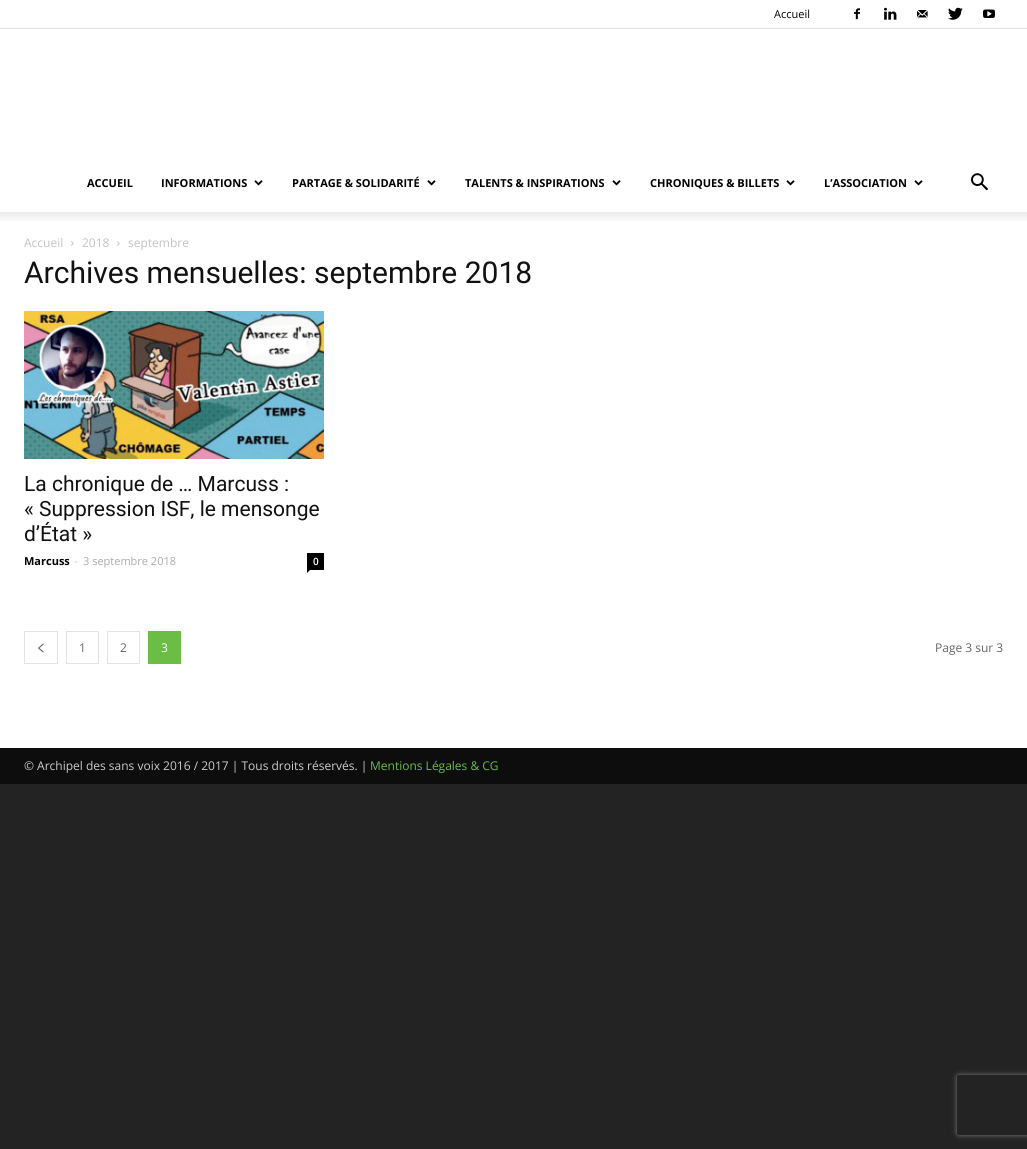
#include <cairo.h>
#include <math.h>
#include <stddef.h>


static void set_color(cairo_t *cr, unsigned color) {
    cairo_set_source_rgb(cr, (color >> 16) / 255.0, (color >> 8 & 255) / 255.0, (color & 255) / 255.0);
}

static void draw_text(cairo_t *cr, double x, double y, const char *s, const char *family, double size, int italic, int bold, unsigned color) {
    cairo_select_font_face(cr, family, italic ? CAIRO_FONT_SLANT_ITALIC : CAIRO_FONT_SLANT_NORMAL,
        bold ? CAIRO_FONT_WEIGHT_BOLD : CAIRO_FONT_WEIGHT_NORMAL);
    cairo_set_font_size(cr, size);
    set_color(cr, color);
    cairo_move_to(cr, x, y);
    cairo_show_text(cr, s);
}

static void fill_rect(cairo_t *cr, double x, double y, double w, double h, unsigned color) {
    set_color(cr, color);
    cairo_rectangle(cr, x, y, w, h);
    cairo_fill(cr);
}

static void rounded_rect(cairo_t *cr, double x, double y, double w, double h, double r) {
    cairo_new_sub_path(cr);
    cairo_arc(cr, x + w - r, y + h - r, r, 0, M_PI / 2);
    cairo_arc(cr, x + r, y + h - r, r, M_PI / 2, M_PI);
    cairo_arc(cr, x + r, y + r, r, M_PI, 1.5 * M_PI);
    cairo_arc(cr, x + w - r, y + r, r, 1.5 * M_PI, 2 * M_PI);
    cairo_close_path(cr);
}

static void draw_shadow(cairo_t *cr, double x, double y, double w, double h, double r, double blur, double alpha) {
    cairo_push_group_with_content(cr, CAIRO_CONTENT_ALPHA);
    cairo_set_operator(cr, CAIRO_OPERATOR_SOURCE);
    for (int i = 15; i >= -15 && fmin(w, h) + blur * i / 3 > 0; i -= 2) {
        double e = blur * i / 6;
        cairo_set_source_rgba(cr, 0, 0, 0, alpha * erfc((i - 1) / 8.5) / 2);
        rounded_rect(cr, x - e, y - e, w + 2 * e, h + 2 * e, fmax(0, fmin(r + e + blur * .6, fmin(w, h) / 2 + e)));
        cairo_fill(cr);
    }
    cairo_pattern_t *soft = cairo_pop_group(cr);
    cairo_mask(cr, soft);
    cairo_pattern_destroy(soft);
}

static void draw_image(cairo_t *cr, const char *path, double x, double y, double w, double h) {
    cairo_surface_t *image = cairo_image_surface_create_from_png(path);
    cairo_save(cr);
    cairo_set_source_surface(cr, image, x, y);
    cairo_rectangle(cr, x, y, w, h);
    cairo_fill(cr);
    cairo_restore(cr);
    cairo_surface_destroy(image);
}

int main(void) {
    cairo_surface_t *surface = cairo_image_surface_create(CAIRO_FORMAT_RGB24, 1027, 1149);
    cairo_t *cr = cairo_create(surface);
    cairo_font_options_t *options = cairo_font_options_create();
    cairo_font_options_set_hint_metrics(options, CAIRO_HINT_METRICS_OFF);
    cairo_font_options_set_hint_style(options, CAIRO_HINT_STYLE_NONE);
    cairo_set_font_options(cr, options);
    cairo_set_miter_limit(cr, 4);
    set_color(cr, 0x232323);
    cairo_paint(cr);
    fill_rect(cr, 0, 0, 1027, 28, 0xFFFFFF);
    fill_rect(cr, 0, 28, 1027, 1, 0xE0E0E0);
    draw_text(cr, 774, 18, "Accueil", "Open Sans", 11, 0, 0, 0x000000);
    draw_image(cr, "assets/img1.png", 854, 8, 6, 12);
    draw_image(cr, "assets/img2.png", 884, 7, 13, 13);
    draw_image(cr, "assets/img3.png", 917, 10, 11, 8);
    draw_image(cr, "assets/img4.png", 948, 7, 15, 13);
    draw_image(cr, "assets/img5.png", 983, 9, 12, 9);
    fill_rect(cr, 0, 29, 1027, 183, 0xFFFFFF);
    draw_text(cr, 87, 187, "ACCUEIL", "Open Sans", 11, 0, 1, 0x000000);
    draw_text(cr, 161, 187, "INFORMATIONS", "Open Sans", 11, 0, 1, 0x000000);
    draw_image(cr, "assets/img6.png", 254, 180, 9, 6);
    draw_text(cr, 292, 187, "PARTAGE & SOLIDARITÉ", "Open Sans", 11, 0, 1, 0x000000);
    draw_image(cr, "assets/img6.png", 427, 180, 9, 6);
    draw_text(cr, 465, 187, "TALENTS & INSPIRATIONS", "Open Sans", 11, 0, 1, 0x000000);
    draw_image(cr, "assets/img6.png", 612, 180, 9, 6);
    draw_text(cr, 650, 187, "CHRONIQUES & BILLETS", "Open Sans", 11, 0, 1, 0x000000);
    draw_image(cr, "assets/img6.png", 786, 180, 9, 6);
    draw_text(cr, 824, 187, "L’ASSOCIATION", "Open Sans", 11, 0, 1, 0x000000);
    draw_image(cr, "assets/img6.png", 914, 180, 9, 6);
    draw_image(cr, "assets/img7.png", 971, 173, 17, 18);
    fill_rect(cr, 0, 212, 1027, 536, 0xFFFFFF);
    draw_image(cr, "assets/img8.png", 0, 212, 1027, 9);
    draw_text(cr, 24, 247, "Accueil", "Open Sans", 12, 0, 0, 0xC3C3C3);
    draw_image(cr, "assets/img9.png", 71, 241, 3, 5);
    draw_text(cr, 82, 247, "2018", "Open Sans", 12, 0, 0, 0xC3C3C3);
    draw_image(cr, "assets/img9.png", 117, 241, 3, 5);
    draw_text(cr, 128, 247, "septembre", "Open Sans", 12, 0, 0, 0xC3C3C3);
    draw_text(cr, 24, 283, "Archives mensuelles: septembre 2018", "Roboto", 30, 0, 0, 0x111111);
    draw_image(cr, "assets/img10.png", 24, 311, 300, 148);
    draw_text(cr, 24, 491, "La chronique de … Marcuss :", "Roboto", 21, 0, 0, 0x111111);
    draw_text(cr, 24, 516, "« Suppression ISF, le mensonge", "Roboto", 21, 0, 0, 0x111111);
    draw_text(cr, 24, 541, "d’État »", "Roboto", 21, 0, 0, 0x111111);
    draw_text(cr, 24, 565, "Marcuss", "Open Sans", 11, 0, 1, 0x000000);
    draw_text(cr, 74, 565, "-", "Open Sans", 11, 0, 0, 0xCCCCCC);
    draw_text(cr, 83, 565, "3 septembre 2018", "Open Sans", 11, 0, 0, 0xAAAAAA);
    fill_rect(cr, 307, 553, 17, 17, 0x000000);
    draw_text(cr, 313, 565, "0", "Open Sans SemiBold", 10, 0, 0, 0xFFFFFF);
    set_color(cr, 0x000000);
    cairo_new_path(cr);
    cairo_move_to(cr, 307, 570);
    cairo_line_to(cr, 310, 570);
    cairo_line_to(cr, 307, 573);
    cairo_close_path(cr);
    cairo_fill(cr);
    cairo_rectangle(cr, 24.5, 631.5, 33, 32);
    set_color(cr, 0xE3E3E3);
    cairo_set_line_width(cr, 1);
    cairo_stroke(cr);
    draw_image(cr, "assets/img11.png", 38, 643, 6, 10);
    cairo_rectangle(cr, 66.5, 631.5, 32, 32);
    cairo_stroke(cr);
    draw_text(cr, 79, 652, "1", "Open Sans", 12, 0, 0, 0x666666);
    cairo_rectangle(cr, 107.5, 631.5, 32, 32);
    set_color(cr, 0xE3E3E3);
    cairo_stroke(cr);
    draw_text(cr, 120, 652, "2", "Open Sans", 12, 0, 0, 0x666666);
    fill_rect(cr, 148, 631, 33, 33, 0x6BBD45);
    draw_text(cr, 161, 652, "3", "Open Sans", 12, 0, 0, 0xFFFFFF);
    draw_text(cr, 935, 652, "Page 3 sur 3", "Open Sans", 12, 0, 0, 0x666666);
    fill_rect(cr, 0, 748, 1027, 36, 0x0D0D0D);
    draw_text(cr, 24, 770, "© Archipel des sans voix 2016 / 2017 | Tous droits réservés. |", "Open Sans", 12, 0, 0, 0xCCCCCC);
    draw_text(cr, 370, 770, "Mentions Légales & CG", "Open Sans", 12, 0, 0, 0x6BBD45);
    cairo_save(cr);
    cairo_set_fill_rule(cr, CAIRO_FILL_RULE_EVEN_ODD);
    cairo_new_path(cr);
    cairo_move_to(cr, 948, 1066);
    cairo_line_to(cr, 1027, 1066);
    cairo_line_to(cr, 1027, 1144);
    cairo_line_to(cr, 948, 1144);
    cairo_close_path(cr);
    cairo_move_to(cr, 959, 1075);
    cairo_line_to(cr, 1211, 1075);
    cairo_curve_to(cr, 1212, 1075, 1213, 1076, 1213, 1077);
    cairo_line_to(cr, 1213, 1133);
    cairo_curve_to(cr, 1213, 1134, 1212, 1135, 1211, 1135);
    cairo_line_to(cr, 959, 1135);
    cairo_curve_to(cr, 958, 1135, 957, 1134, 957, 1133);
    cairo_line_to(cr, 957, 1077);
    cairo_curve_to(cr, 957, 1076, 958, 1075, 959, 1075);
    cairo_close_path(cr);
    cairo_clip(cr);
    set_color(cr, 0x808080);
    draw_shadow(cr, 957, 1075, 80, 60, 2, 2.5, 1);
    cairo_restore(cr);
    cairo_surface_write_to_png(surface, "output.png");
    cairo_font_options_destroy(options);
    cairo_destroy(cr);
    cairo_surface_destroy(surface);
    return 0;
}
